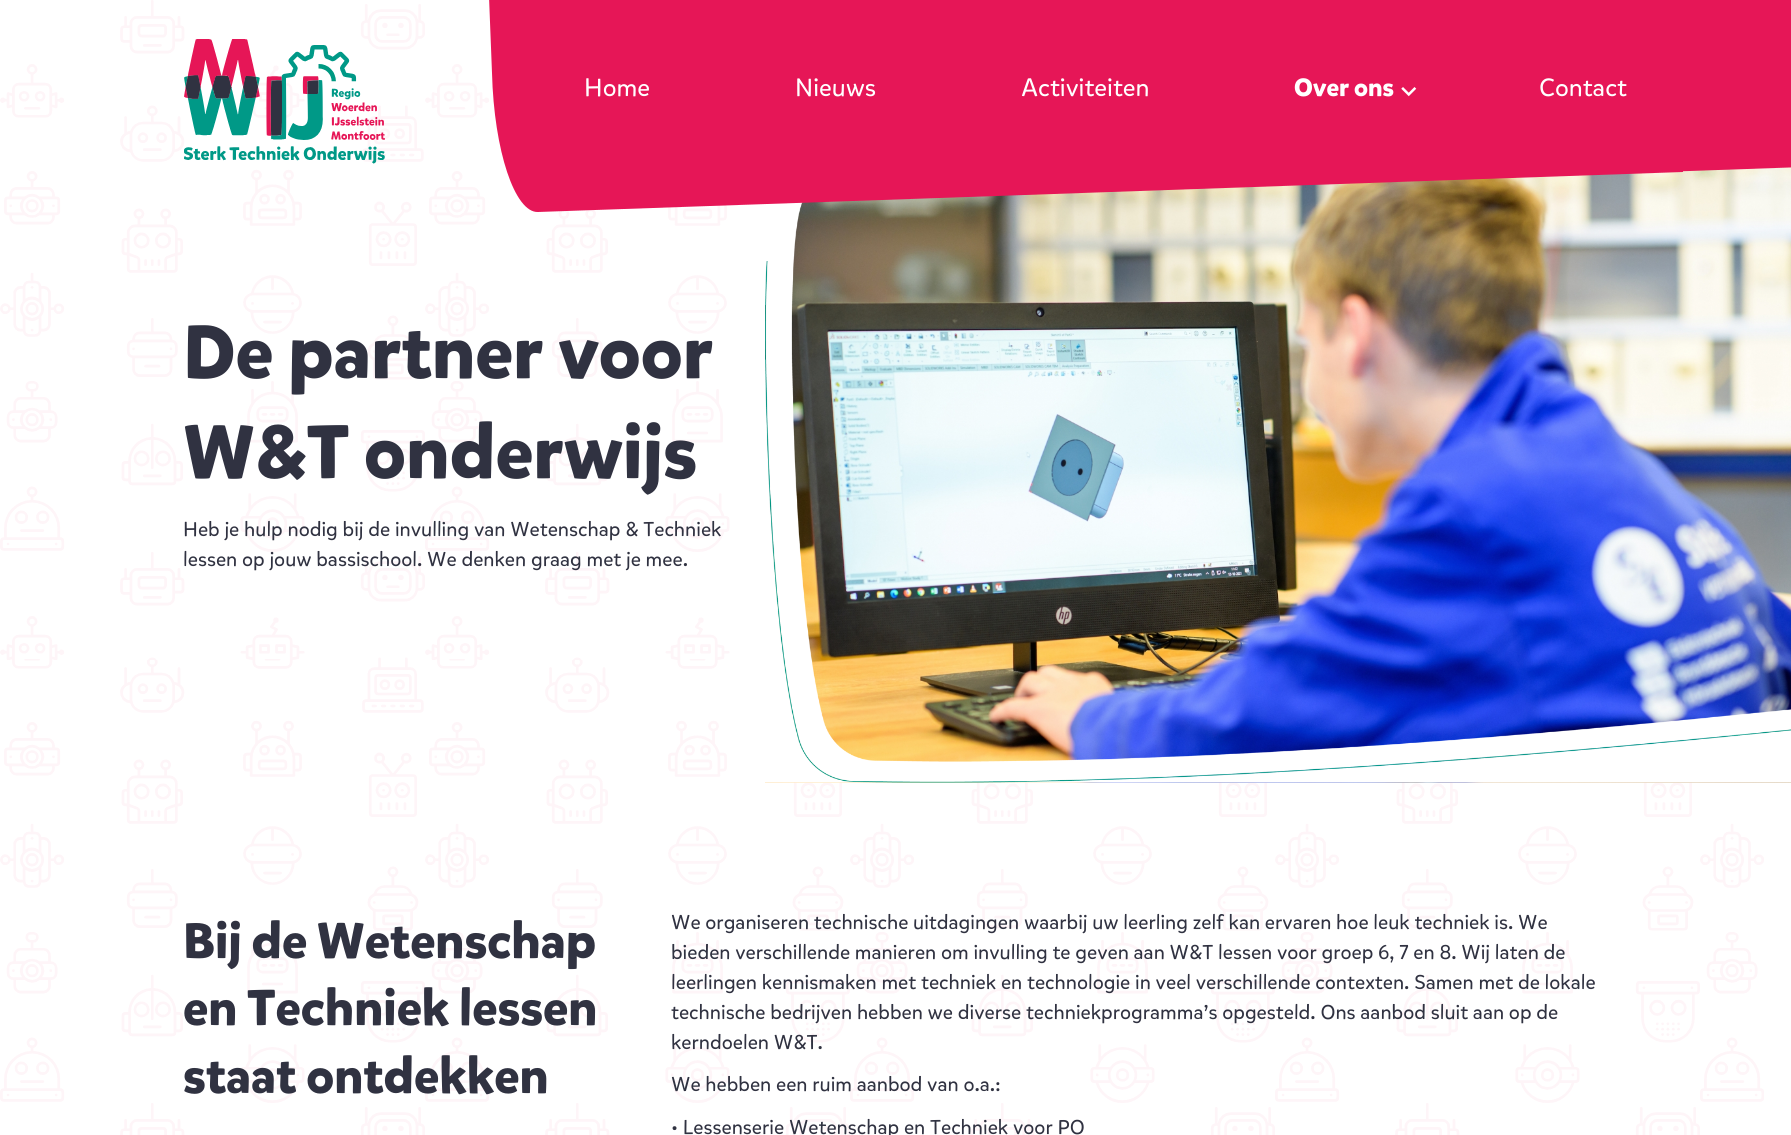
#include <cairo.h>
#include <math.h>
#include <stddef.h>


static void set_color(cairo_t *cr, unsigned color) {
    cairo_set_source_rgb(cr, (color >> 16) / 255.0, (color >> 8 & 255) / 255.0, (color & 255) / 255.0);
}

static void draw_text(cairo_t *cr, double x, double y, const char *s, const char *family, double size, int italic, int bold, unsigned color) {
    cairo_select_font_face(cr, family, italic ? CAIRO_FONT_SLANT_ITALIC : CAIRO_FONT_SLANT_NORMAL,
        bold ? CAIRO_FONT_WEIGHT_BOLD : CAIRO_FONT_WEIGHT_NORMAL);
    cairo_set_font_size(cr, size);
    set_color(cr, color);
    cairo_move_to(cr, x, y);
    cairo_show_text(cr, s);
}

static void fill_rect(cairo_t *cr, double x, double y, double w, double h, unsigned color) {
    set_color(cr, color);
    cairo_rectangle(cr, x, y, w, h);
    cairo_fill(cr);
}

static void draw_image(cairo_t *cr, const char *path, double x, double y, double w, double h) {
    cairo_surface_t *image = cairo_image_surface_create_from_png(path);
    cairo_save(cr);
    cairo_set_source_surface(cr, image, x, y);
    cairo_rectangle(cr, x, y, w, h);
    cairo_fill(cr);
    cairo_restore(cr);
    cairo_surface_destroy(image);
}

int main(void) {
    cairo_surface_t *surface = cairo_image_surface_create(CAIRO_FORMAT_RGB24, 1791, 1135);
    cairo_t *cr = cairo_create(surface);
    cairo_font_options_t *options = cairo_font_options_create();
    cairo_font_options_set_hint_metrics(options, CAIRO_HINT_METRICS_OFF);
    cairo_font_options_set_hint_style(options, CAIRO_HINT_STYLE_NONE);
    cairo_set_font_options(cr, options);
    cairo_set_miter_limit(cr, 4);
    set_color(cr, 0xFFFFFF);
    cairo_paint(cr);
    draw_image(cr, "assets/img1.png", 0, 0, 1764, 1135);
    draw_image(cr, "assets/img2.png", 184, 39, 201, 125);
    draw_image(cr, "assets/img4.png", 765, 167, 1026, 616);
    draw_image(cr, "assets/img5.png", 765, 202, 1026, 581);
    fill_rect(cr, 766, 203, 9, 58, 0xFFFFFF);
    set_color(cr, 0xE61657);
    cairo_new_path(cr);
    cairo_move_to(cr, 488, -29);
    cairo_line_to(cr, 1675, -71);
    cairo_line_to(cr, 1683, 172);
    cairo_line_to(cr, 538, 212);
    cairo_curve_to(cr, 515, 213, 494, 151, 492, 73);
    cairo_close_path(cr);
    cairo_fill(cr);
    draw_text(cr, 1539, 96, "Contact", "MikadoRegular", 25, 0, 0, 0xFFFFFF);
    set_color(cr, 0xE61657);
    cairo_new_path(cr);
    cairo_move_to(cr, 1623, -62);
    cairo_line_to(cr, 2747, -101);
    cairo_line_to(cr, 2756, 134);
    cairo_line_to(cr, 1631, 173);
    cairo_close_path(cr);
    cairo_fill(cr);
    draw_text(cr, 584, 96, "Home", "MikadoRegular", 25, 0, 0, 0xFFFFFF);
    draw_text(cr, 795, 96, "Nieuws", "MikadoRegular", 25, 0, 0, 0xFFFFFF);
    draw_text(cr, 1021, 96, "Activiteiten", "MikadoRegular", 25, 0, 0, 0xFFFFFF);
    draw_text(cr, 1294, 96, "Over ons", "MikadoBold", 25, 0, 1, 0xFFFFFF);
    draw_image(cr, "assets/img3.png", 1401, 87, 16, 10);
    draw_text(cr, 183, 378, "De partner voor", "MikadoBold", 75, 0, 1, 0x303241);
    draw_text(cr, 183, 478, "W&T onderwijs", "MikadoBold", 75, 0, 1, 0x303241);
    draw_text(cr, 183, 536, "Heb je hulp nodig bij de invulling van Wetenschap & Techniek", "MikadoRegular", 20, 0, 0, 0x303241);
    draw_text(cr, 183, 566, "lessen op jouw bassischool. We denken graag met je mee.", "MikadoRegular", 20, 0, 0, 0x303241);
    draw_text(cr, 183, 958, "Bij de Wetenschap", "MikadoBold", 50, 0, 1, 0x303241);
    draw_text(cr, 183, 1025, "en Techniek lessen", "MikadoBold", 50, 0, 1, 0x303241);
    draw_text(cr, 183, 1093, "staat ontdekken", "MikadoBold", 50, 0, 1, 0x303241);
    draw_text(cr, 671, 929, "We organiseren technische uitdagingen waarbij uw leerling zelf kan ervaren hoe leuk techniek is. We", "MikadoRegular", 20, 0, 0, 0x303241);
    draw_text(cr, 671, 959, "bieden verschillende manieren om invulling te geven aan W&T lessen voor groep 6, 7 en 8. Wij laten de", "MikadoRegular", 20, 0, 0, 0x303241);
    draw_text(cr, 671, 989, "leerlingen kennismaken met techniek en technologie in veel verschillende contexten. Samen met de lokale", "MikadoRegular", 20, 0, 0, 0x303241);
    draw_text(cr, 671, 1019, "technische bedrijven hebben we diverse techniekprogramma’s opgesteld. Ons aanbod sluit aan op de", "MikadoRegular", 20, 0, 0, 0x303241);
    draw_text(cr, 671, 1049, "kerndoelen W&T.", "MikadoRegular", 20, 0, 0, 0x303241);
    draw_text(cr, 671, 1091, "We hebben een ruim aanbod van o.a.:", "MikadoRegular", 20, 0, 0, 0x303241);
    draw_text(cr, 671, 1134, "• Lessenserie Wetenschap en Techniek voor PO", "MikadoRegular", 20, 0, 0, 0x303241);
    cairo_surface_write_to_png(surface, "output.png");
    cairo_font_options_destroy(options);
    cairo_destroy(cr);
    cairo_surface_destroy(surface);
    return 0;
}
